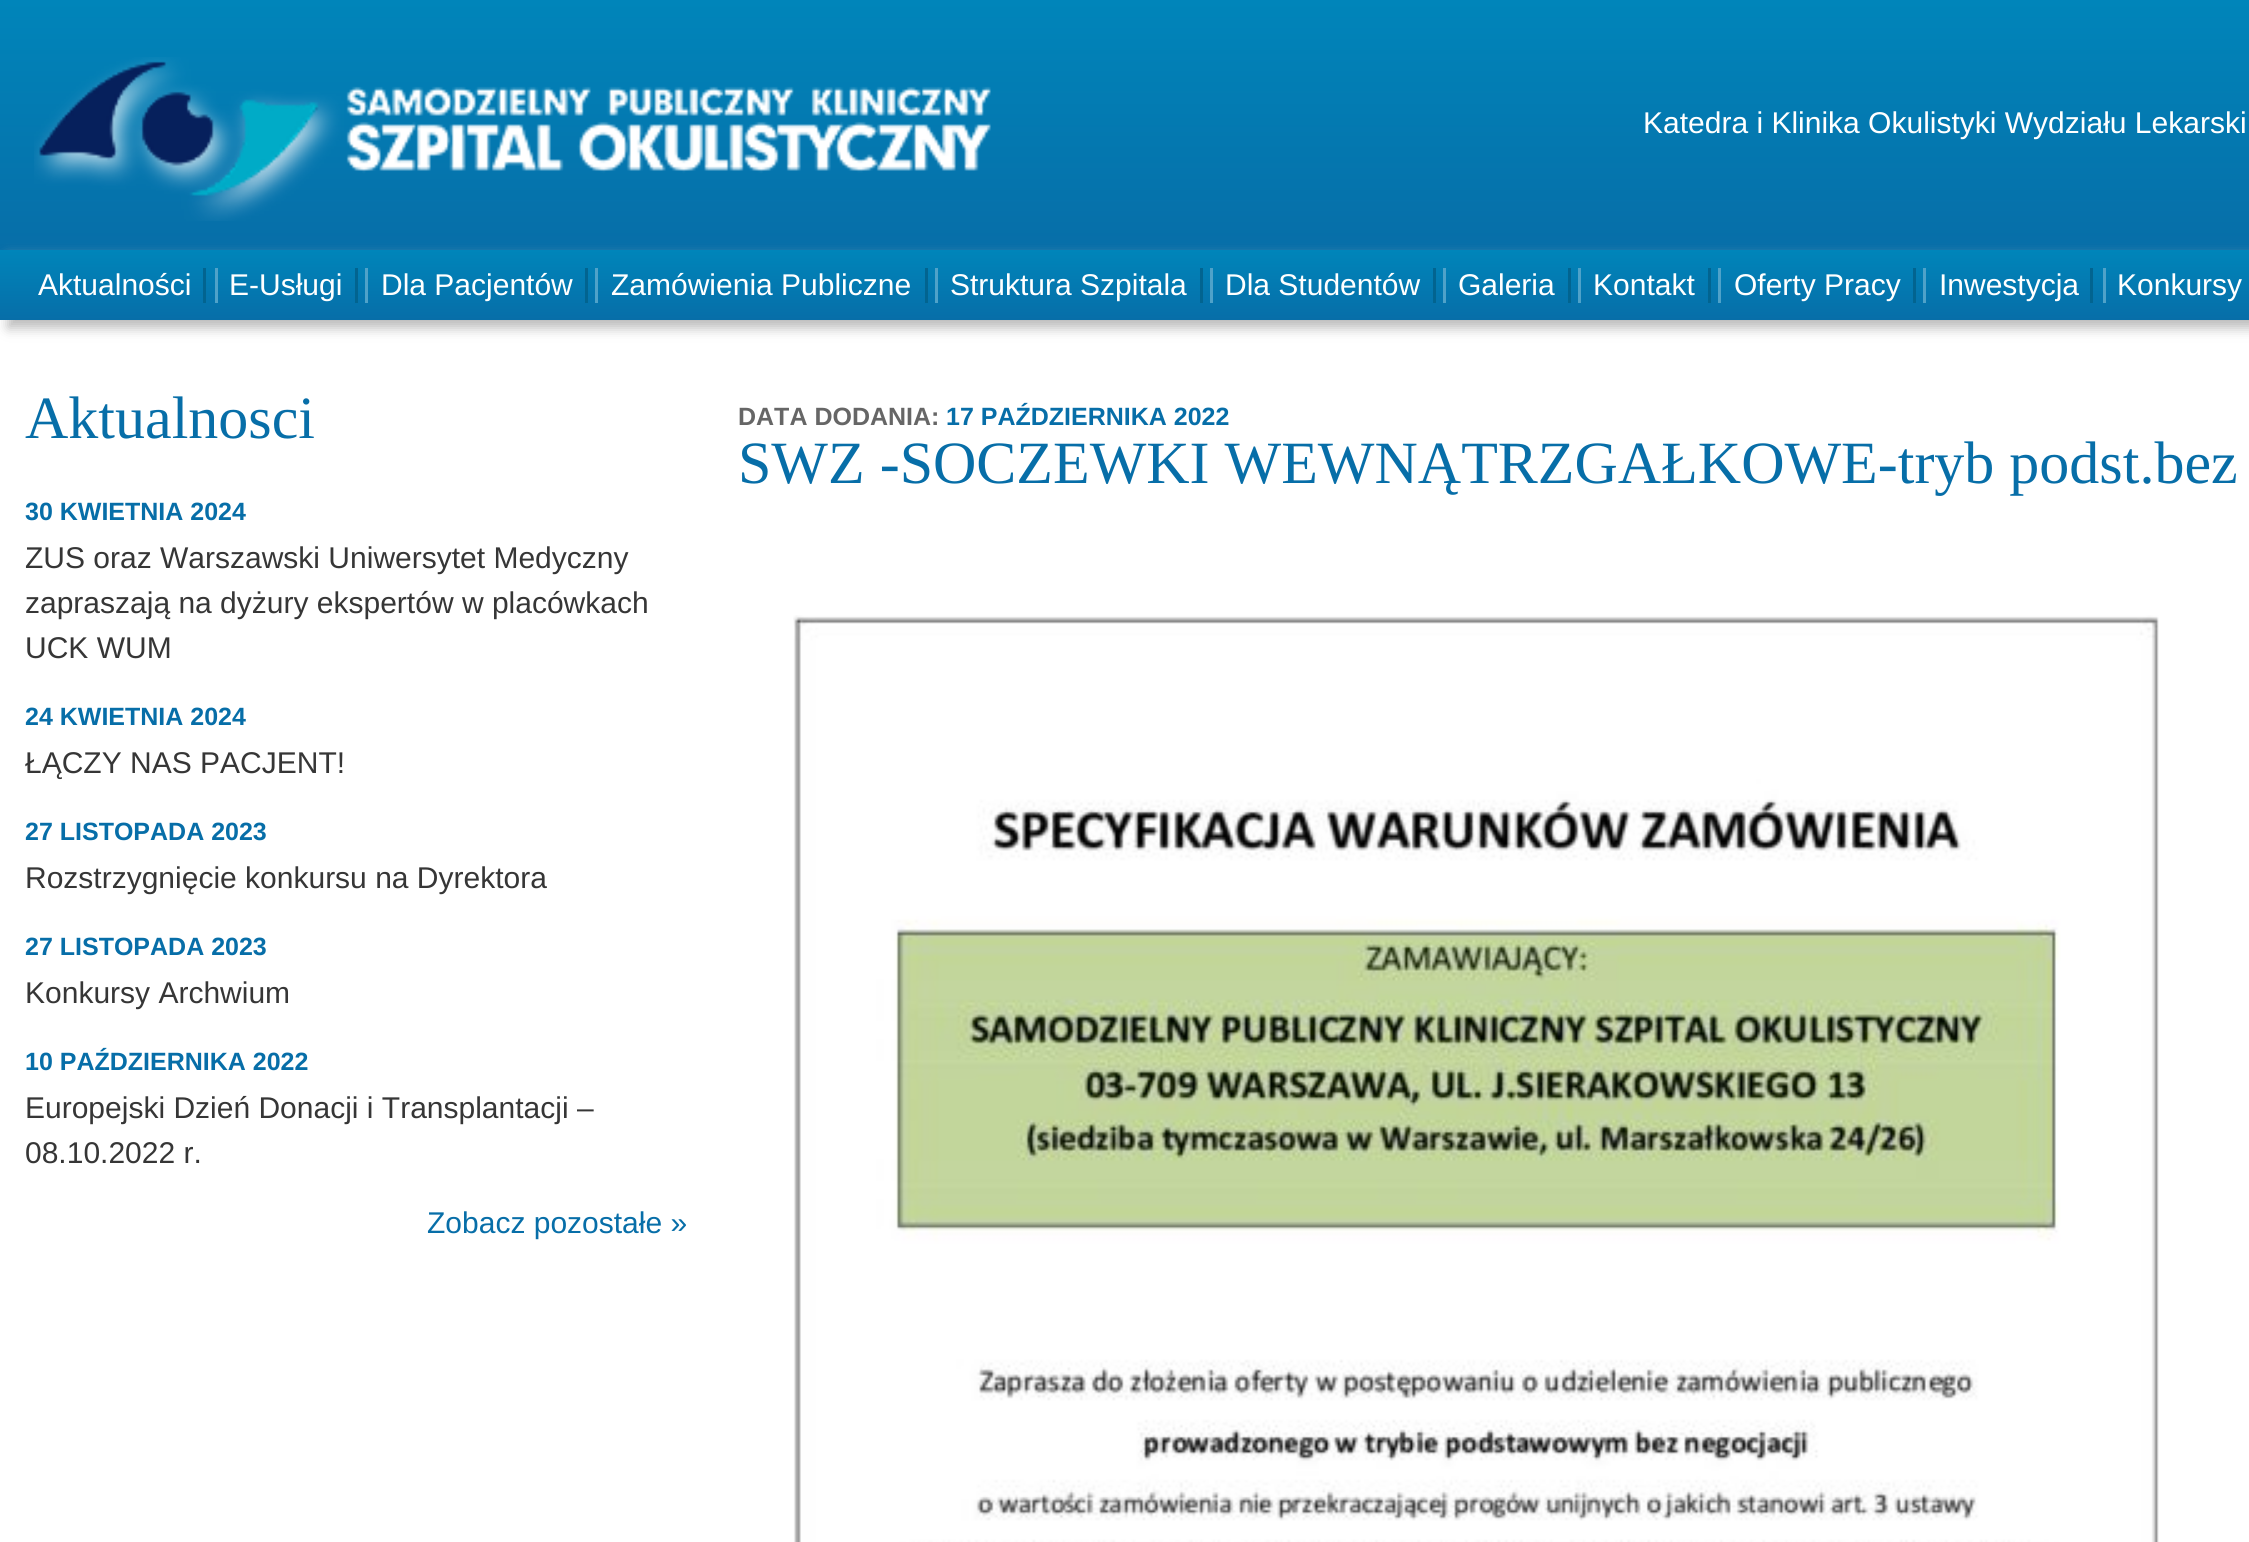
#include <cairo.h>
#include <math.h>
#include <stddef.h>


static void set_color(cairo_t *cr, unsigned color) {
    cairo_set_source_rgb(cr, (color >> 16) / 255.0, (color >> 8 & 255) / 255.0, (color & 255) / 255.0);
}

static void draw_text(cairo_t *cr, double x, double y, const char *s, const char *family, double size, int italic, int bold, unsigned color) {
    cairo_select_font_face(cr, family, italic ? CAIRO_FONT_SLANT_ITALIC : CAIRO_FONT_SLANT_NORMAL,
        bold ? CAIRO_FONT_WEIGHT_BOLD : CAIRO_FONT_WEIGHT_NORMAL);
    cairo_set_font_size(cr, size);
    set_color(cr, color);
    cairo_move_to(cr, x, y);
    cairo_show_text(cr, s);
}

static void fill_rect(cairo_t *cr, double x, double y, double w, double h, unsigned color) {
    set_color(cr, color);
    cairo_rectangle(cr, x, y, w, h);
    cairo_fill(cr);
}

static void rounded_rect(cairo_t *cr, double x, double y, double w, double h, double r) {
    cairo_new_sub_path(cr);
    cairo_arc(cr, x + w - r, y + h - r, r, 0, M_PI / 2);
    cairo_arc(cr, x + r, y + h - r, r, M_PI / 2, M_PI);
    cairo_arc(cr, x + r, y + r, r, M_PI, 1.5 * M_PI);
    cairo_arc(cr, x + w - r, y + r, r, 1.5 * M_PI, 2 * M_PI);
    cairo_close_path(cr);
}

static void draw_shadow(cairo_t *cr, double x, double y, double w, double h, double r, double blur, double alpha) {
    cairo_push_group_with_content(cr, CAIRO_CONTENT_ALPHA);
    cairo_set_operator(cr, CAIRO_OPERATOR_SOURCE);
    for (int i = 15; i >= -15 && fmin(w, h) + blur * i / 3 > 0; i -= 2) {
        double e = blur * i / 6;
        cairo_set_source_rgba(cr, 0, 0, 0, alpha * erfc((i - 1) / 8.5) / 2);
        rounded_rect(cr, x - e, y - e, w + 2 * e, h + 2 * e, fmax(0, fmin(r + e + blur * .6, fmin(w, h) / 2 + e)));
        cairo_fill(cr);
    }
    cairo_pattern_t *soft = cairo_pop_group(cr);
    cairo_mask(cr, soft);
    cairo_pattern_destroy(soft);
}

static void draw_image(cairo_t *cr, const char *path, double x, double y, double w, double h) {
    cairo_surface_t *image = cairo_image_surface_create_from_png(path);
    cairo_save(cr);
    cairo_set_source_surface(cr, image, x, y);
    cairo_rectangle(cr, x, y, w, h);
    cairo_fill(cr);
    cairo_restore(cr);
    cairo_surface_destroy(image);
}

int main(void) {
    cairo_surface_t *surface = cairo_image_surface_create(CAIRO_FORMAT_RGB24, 2249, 1542);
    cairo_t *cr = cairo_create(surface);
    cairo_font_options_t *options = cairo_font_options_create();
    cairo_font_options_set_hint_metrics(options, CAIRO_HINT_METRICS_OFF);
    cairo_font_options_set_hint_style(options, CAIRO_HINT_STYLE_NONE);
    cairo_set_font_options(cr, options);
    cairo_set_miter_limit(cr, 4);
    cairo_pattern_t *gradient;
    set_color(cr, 0xFFFFFF);
    cairo_paint(cr);
    gradient = cairo_pattern_create_linear(0, 0, 0, 250);
    cairo_pattern_add_color_stop_rgba(gradient, 0, 0, 0.522, 0.729, 1);
    cairo_pattern_add_color_stop_rgba(gradient, 1, 0.027, 0.431, 0.659, 1);
    cairo_set_source(cr, gradient);
    cairo_pattern_destroy(gradient);
    cairo_rectangle(cr, 0, 0, 2249, 250);
    cairo_fill(cr);
    draw_image(cr, "assets/img1.png", 34, 57, 957, 164);
    draw_text(cr, 1643, 133, "Katedra i Klinika Okulistyki Wydziału Lekarski", "Liberation Sans", 30, 0, 0, 0xFFFFFF);
    set_color(cr, 0xBBBBBB);
    draw_shadow(cr, 8, 258, 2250, 70, 0, 6, 1);
    gradient = cairo_pattern_create_linear(0, 250, 0, 320);
    cairo_pattern_add_color_stop_rgba(gradient, 0, 0, 0.522, 0.729, 1);
    cairo_pattern_add_color_stop_rgba(gradient, 1, 0.027, 0.431, 0.659, 1);
    cairo_set_source(cr, gradient);
    cairo_pattern_destroy(gradient);
    cairo_rectangle(cr, 0, 250, 2249, 70);
    cairo_fill(cr);
    draw_text(cr, 38, 295, "Aktualności", "Liberation Sans", 30, 0, 0, 0xFFFFFF);
    fill_rect(cr, 203, 268, 3, 35, 0x026490);
    draw_text(cr, 229, 295, "E-Usługi", "Liberation Sans", 30, 0, 0, 0xFFFFFF);
    fill_rect(cr, 355, 268, 3, 35, 0x026490);
    fill_rect(cr, 215, 268, 3, 35, 0x4FA2C9);
    draw_text(cr, 381, 295, "Dla Pacjentów", "Liberation Sans", 30, 0, 0, 0xFFFFFF);
    fill_rect(cr, 585, 268, 3, 35, 0x026490);
    fill_rect(cr, 365, 268, 3, 35, 0x4FA2C9);
    draw_text(cr, 611, 295, "Zamówienia Publiczne", "Liberation Sans", 30, 0, 0, 0xFFFFFF);
    fill_rect(cr, 925, 268, 3, 35, 0x026490);
    fill_rect(cr, 595, 268, 3, 35, 0x4FA2C9);
    draw_text(cr, 950, 295, "Struktura Szpitala", "Liberation Sans", 30, 0, 0, 0xFFFFFF);
    fill_rect(cr, 1200, 268, 3, 35, 0x026490);
    fill_rect(cr, 935, 268, 3, 35, 0x4FA2C9);
    draw_text(cr, 1225, 295, "Dla Studentów", "Liberation Sans", 30, 0, 0, 0xFFFFFF);
    fill_rect(cr, 1433, 268, 3, 35, 0x026490);
    fill_rect(cr, 1210, 268, 3, 35, 0x4FA2C9);
    draw_text(cr, 1458, 295, "Galeria", "Liberation Sans", 30, 0, 0, 0xFFFFFF);
    fill_rect(cr, 1568, 268, 3, 35, 0x026490);
    fill_rect(cr, 1443, 268, 3, 35, 0x4FA2C9);
    draw_text(cr, 1593, 295, "Kontakt", "Liberation Sans", 30, 0, 0, 0xFFFFFF);
    fill_rect(cr, 1708, 268, 3, 35, 0x026490);
    fill_rect(cr, 1578, 268, 3, 35, 0x4FA2C9);
    draw_text(cr, 1734, 295, "Oferty Pracy", "Liberation Sans", 30, 0, 0, 0xFFFFFF);
    fill_rect(cr, 1913, 268, 3, 35, 0x026490);
    fill_rect(cr, 1718, 268, 3, 35, 0x4FA2C9);
    draw_text(cr, 1939, 295, "Inwestycja", "Liberation Sans", 30, 0, 0, 0xFFFFFF);
    fill_rect(cr, 2090, 268, 3, 35, 0x026490);
    fill_rect(cr, 1923, 268, 3, 35, 0x4FA2C9);
    draw_text(cr, 2117, 295, "Konkursy", "Liberation Sans", 30, 0, 0, 0xFFFFFF);
    fill_rect(cr, 2103, 268, 3, 35, 0x4FA2C9);
    draw_text(cr, 25, 438, "Aktualnosci", "Liberation Serif", 60, 0, 0, 0x076EA8);
    draw_text(cr, 25, 520, "30 KWIETNIA 2024", "Liberation Sans", 25, 0, 1, 0x076EA8);
    draw_text(cr, 25, 568, "ZUS oraz Warszawski Uniwersytet Medyczny", "Liberation Sans", 30, 0, 0, 0x363636);
    draw_text(cr, 25, 613, "zapraszają na dyżury ekspertów w placówkach", "Liberation Sans", 30, 0, 0, 0x363636);
    draw_text(cr, 25, 658, "UCK WUM", "Liberation Sans", 30, 0, 0, 0x363636);
    draw_text(cr, 25, 725, "24 KWIETNIA 2024", "Liberation Sans", 25, 0, 1, 0x076EA8);
    draw_text(cr, 25, 773, "ŁĄCZY NAS PACJENT!", "Liberation Sans", 30, 0, 0, 0x363636);
    draw_text(cr, 25, 840, "27 LISTOPADA 2023", "Liberation Sans", 25, 0, 1, 0x076EA8);
    draw_text(cr, 25, 888, "Rozstrzygnięcie konkursu na Dyrektora", "Liberation Sans", 30, 0, 0, 0x363636);
    draw_text(cr, 25, 955, "27 LISTOPADA 2023", "Liberation Sans", 25, 0, 1, 0x076EA8);
    draw_text(cr, 25, 1003, "Konkursy Archwium", "Liberation Sans", 30, 0, 0, 0x363636);
    draw_text(cr, 25, 1070, "10 PAŹDZIERNIKA 2022", "Liberation Sans", 25, 0, 1, 0x076EA8);
    draw_text(cr, 25, 1118, "Europejski Dzień Donacji i Transplantacji –", "Liberation Sans", 30, 0, 0, 0x363636);
    draw_text(cr, 25, 1163, "08.10.2022 r.", "Liberation Sans", 30, 0, 0, 0x363636);
    draw_text(cr, 427, 1233, "Zobacz pozostałe »", "Liberation Sans", 30, 0, 0, 0x076EA8);
    draw_text(cr, 738, 425, "DATA DODANIA:", "Liberation Sans", 25, 0, 1, 0x666666);
    draw_text(cr, 946, 425, "17 PAŹDZIERNIKA 2022", "Liberation Sans", 25, 0, 1, 0x076EA8);
    draw_text(cr, 738, 483, "SWZ -SOCZEWKI WEWNĄTRZGAŁKOWE-tryb podst.bez", "Liberation Serif", 60, 0, 0, 0x076EA8);
    draw_image(cr, "assets/img2.png", 793, 615, 1366, 927);
    cairo_surface_write_to_png(surface, "output.png");
    cairo_font_options_destroy(options);
    cairo_destroy(cr);
    cairo_surface_destroy(surface);
    return 0;
}
